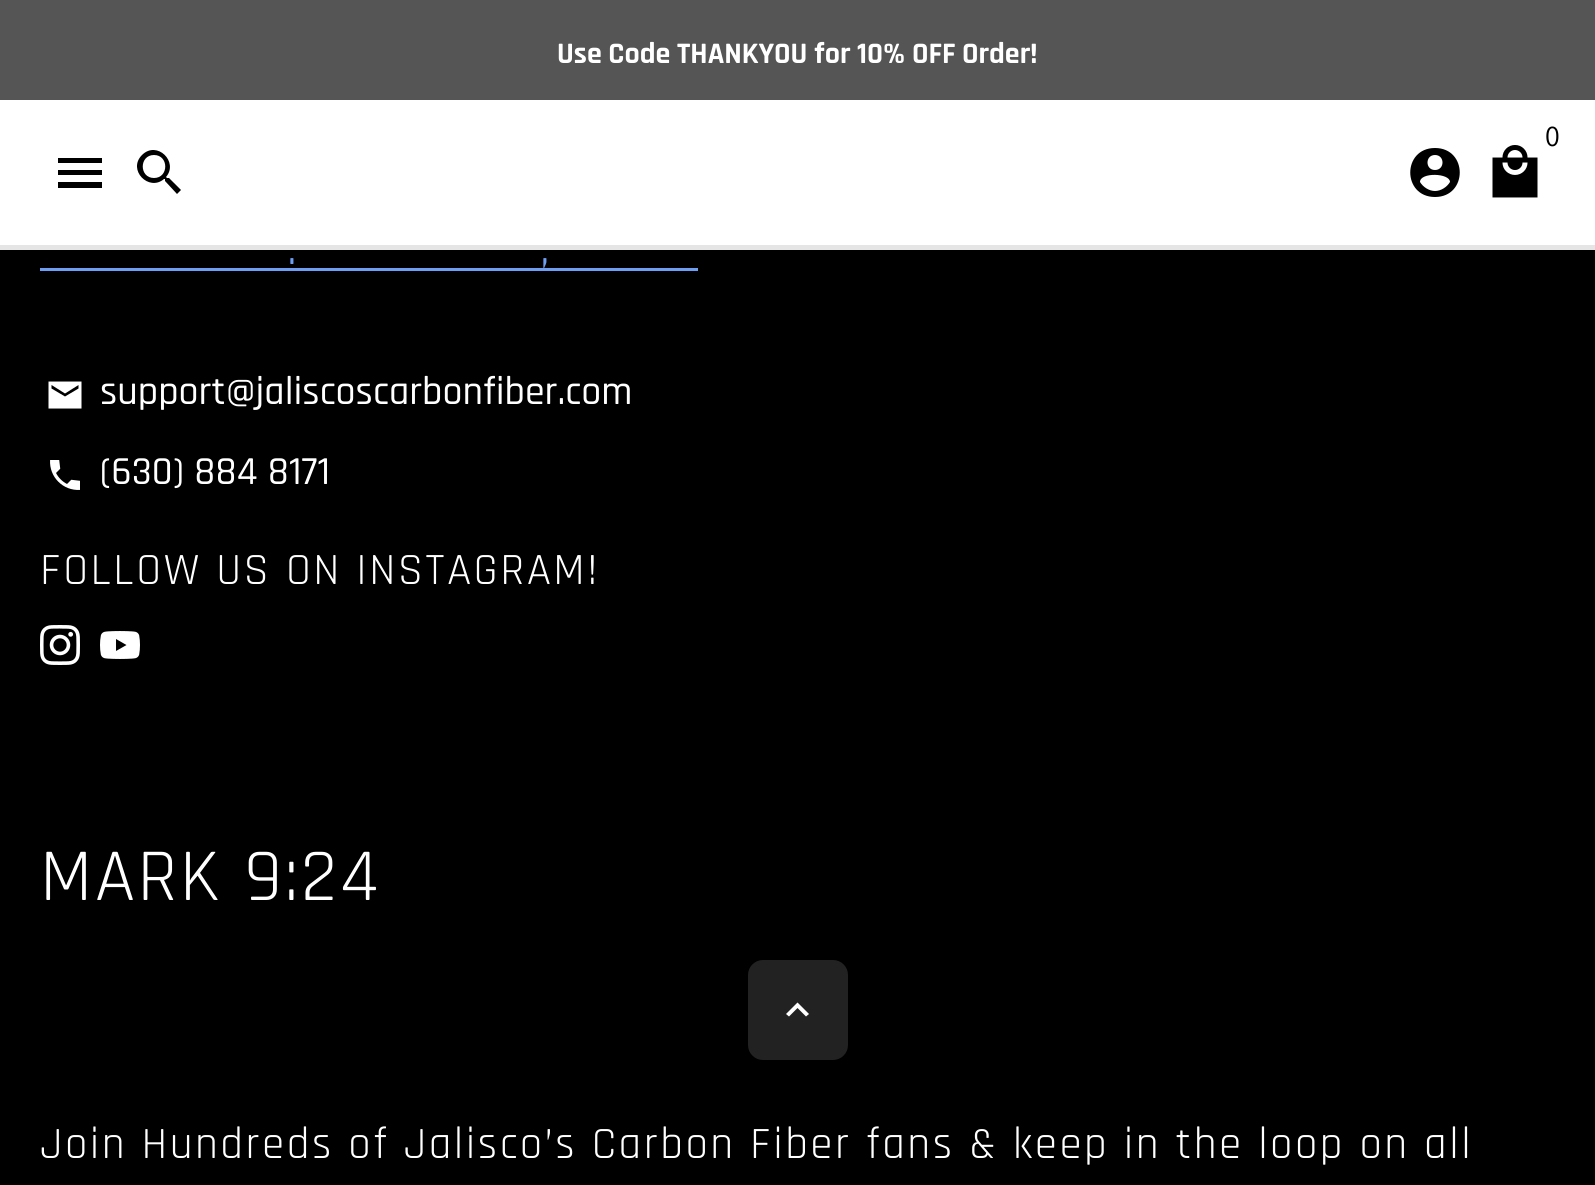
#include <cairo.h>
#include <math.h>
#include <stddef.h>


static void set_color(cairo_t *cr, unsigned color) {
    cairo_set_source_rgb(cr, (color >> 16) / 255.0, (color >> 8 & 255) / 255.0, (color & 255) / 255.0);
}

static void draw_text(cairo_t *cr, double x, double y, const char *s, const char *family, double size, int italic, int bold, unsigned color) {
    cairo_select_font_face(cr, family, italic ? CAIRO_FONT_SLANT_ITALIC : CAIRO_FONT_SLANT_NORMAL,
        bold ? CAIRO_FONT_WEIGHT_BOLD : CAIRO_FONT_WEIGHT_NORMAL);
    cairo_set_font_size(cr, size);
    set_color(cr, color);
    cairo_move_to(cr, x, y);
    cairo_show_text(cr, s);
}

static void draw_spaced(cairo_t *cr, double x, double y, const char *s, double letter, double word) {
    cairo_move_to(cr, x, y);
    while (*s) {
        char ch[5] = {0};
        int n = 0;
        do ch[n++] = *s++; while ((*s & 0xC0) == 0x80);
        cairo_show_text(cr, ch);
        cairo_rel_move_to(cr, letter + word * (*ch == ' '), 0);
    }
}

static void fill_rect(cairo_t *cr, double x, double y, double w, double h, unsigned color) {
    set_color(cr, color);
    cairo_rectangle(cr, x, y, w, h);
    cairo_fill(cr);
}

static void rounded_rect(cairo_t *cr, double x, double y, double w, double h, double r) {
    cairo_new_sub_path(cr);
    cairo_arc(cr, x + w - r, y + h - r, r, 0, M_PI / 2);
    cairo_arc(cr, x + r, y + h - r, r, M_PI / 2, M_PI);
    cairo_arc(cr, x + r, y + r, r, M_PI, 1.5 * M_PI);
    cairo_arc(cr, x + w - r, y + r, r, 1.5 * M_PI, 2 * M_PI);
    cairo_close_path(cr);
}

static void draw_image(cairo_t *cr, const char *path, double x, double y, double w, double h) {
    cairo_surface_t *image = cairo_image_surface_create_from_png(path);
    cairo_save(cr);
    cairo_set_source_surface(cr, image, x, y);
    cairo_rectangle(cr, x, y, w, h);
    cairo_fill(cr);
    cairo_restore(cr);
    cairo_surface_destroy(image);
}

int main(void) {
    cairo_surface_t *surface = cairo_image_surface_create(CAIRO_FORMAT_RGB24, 1595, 1185);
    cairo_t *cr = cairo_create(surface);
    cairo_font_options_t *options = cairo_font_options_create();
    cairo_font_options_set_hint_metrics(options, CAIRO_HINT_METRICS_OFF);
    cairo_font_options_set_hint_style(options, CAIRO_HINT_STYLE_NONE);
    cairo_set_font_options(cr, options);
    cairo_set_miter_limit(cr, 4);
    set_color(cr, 0x000000);
    cairo_paint(cr);
    fill_rect(cr, 0, 0, 1595, 100, 0x555555);
    draw_text(cr, 557, 63, "Use Code THANKYOU for 10% OFF Order!", "Rajdhani", 30, 0, 1, 0xFFFFFF);
    fill_rect(cr, 0, 100, 1595, 145, 0xFFFFFF);
    fill_rect(cr, 0, 245, 1595, 5, 0xE5E5E5);
    draw_text(cr, 1545, 146, "0", "Assistant", 30, 0, 0, 0x000000);
    draw_image(cr, "assets/img1.png", 1492, 145, 46, 53);
    cairo_new_path(cr);
    cairo_move_to(cr, 1435, 148);
    cairo_curve_to(cr, 1402, 148, 1402, 197, 1435, 197);
    cairo_curve_to(cr, 1468, 197, 1468, 148, 1435, 148);
    cairo_close_path(cr);
    cairo_move_to(cr, 1435, 155);
    cairo_curve_to(cr, 1445, 155, 1445, 170, 1435, 170);
    cairo_curve_to(cr, 1425, 170, 1425, 155, 1435, 155);
    cairo_close_path(cr);
    cairo_move_to(cr, 1435, 191);
    cairo_curve_to(cr, 1429, 191, 1423, 187, 1420, 182);
    cairo_curve_to(cr, 1420, 172, 1450, 173, 1450, 182);
    cairo_curve_to(cr, 1447, 187, 1441, 191, 1435, 191);
    cairo_close_path(cr);
    cairo_fill(cr);
    cairo_new_path(cr);
    cairo_move_to(cr, 58, 188);
    cairo_line_to(cr, 102, 188);
    cairo_line_to(cr, 102, 182);
    cairo_line_to(cr, 58, 182);
    cairo_close_path(cr);
    cairo_move_to(cr, 58, 175);
    cairo_line_to(cr, 102, 175);
    cairo_line_to(cr, 102, 170);
    cairo_line_to(cr, 58, 170);
    cairo_close_path(cr);
    cairo_move_to(cr, 58, 158);
    cairo_line_to(cr, 58, 163);
    cairo_line_to(cr, 102, 163);
    cairo_line_to(cr, 102, 158);
    cairo_close_path(cr);
    cairo_fill(cr);
    cairo_new_path(cr);
    cairo_move_to(cr, 169, 178);
    cairo_line_to(cr, 167, 178);
    cairo_line_to(cr, 166, 177);
    cairo_curve_to(cr, 179, 162, 157, 140, 142, 155);
    cairo_curve_to(cr, 127, 170, 149, 192, 164, 179);
    cairo_line_to(cr, 165, 179);
    cairo_line_to(cr, 165, 181);
    cairo_line_to(cr, 177, 194);
    cairo_line_to(cr, 181, 190);
    cairo_close_path(cr);
    cairo_move_to(cr, 154, 178);
    cairo_curve_to(cr, 139, 178, 139, 155, 154, 155);
    cairo_curve_to(cr, 169, 155, 169, 178, 154, 178);
    cairo_close_path(cr);
    cairo_fill(cr);
    draw_text(cr, 288, 264, ".", "Rajdhani Medium", 40, 0, 0, 0x6E9EF1);
    fill_rect(cr, 40, 268, 658, 3, 0x6E9EF1);
    draw_text(cr, 541, 264, ",", "Rajdhani Medium", 40, 0, 0, 0x6E9EF1);
    set_color(cr, 0xFFFFFF);
    cairo_new_path(cr);
    cairo_move_to(cr, 81.5, 381.5);
    cairo_line_to(cr, 48.5, 381.5);
    cairo_line_to(cr, 48.5, 408.5);
    cairo_line_to(cr, 81.5, 408.5);
    cairo_close_path(cr);
    cairo_move_to(cr, 78.5, 388.5);
    cairo_line_to(cr, 65, 396.5);
    cairo_line_to(cr, 51.5, 388.5);
    cairo_line_to(cr, 51.5, 385);
    cairo_line_to(cr, 65, 393.5);
    cairo_line_to(cr, 78.5, 385);
    cairo_close_path(cr);
    cairo_fill(cr);
    draw_text(cr, 100, 404, "support@jaliscoscarbonfiber.com", "Rajdhani Medium", 40, 0, 0, 0xFFFFFF);
    draw_image(cr, "assets/img2.png", 50, 460, 30, 30);
    draw_text(cr, 100, 484, "(630) 884 8171", "Rajdhani Medium", 40, 0, 0, 0xFFFFFF);
    cairo_select_font_face(cr, "Rajdhani", CAIRO_FONT_SLANT_NORMAL, CAIRO_FONT_WEIGHT_NORMAL);
    cairo_set_font_size(cr, 45);
    draw_spaced(cr, 40, 584, "FOLLOW US ON INSTAGRAM!", 2.5, 0);
    draw_image(cr, "assets/img3.png", 40, 625, 40, 40);
    draw_image(cr, "assets/img4.png", 100, 631, 40, 28);
    cairo_set_font_size(cr, 75);
    draw_spaced(cr, 40, 900, "MARK 9:24", 2.5, 0);
    cairo_set_font_size(cr, 45);
    draw_spaced(cr, 40, 1158, "Join Hundreds of Jalisco’s Carbon Fiber fans & keep in the loop on all", 2.5, 0);
    set_color(cr, 0x222222);
    rounded_rect(cr, 750.5, 962.5, 95, 95, 12.5);
    cairo_fill_preserve(cr);
    cairo_set_line_width(cr, 5);
    cairo_stroke(cr);
    set_color(cr, 0xFFFFFF);
    cairo_new_path(cr);
    cairo_move_to(cr, 789, 1016.5);
    cairo_line_to(cr, 797.5, 1008);
    cairo_line_to(cr, 806, 1016.5);
    cairo_line_to(cr, 809, 1014);
    cairo_line_to(cr, 797.5, 1002.5);
    cairo_line_to(cr, 786, 1014);
    cairo_close_path(cr);
    cairo_fill(cr);
    cairo_surface_write_to_png(surface, "output.png");
    cairo_font_options_destroy(options);
    cairo_destroy(cr);
    cairo_surface_destroy(surface);
    return 0;
}
